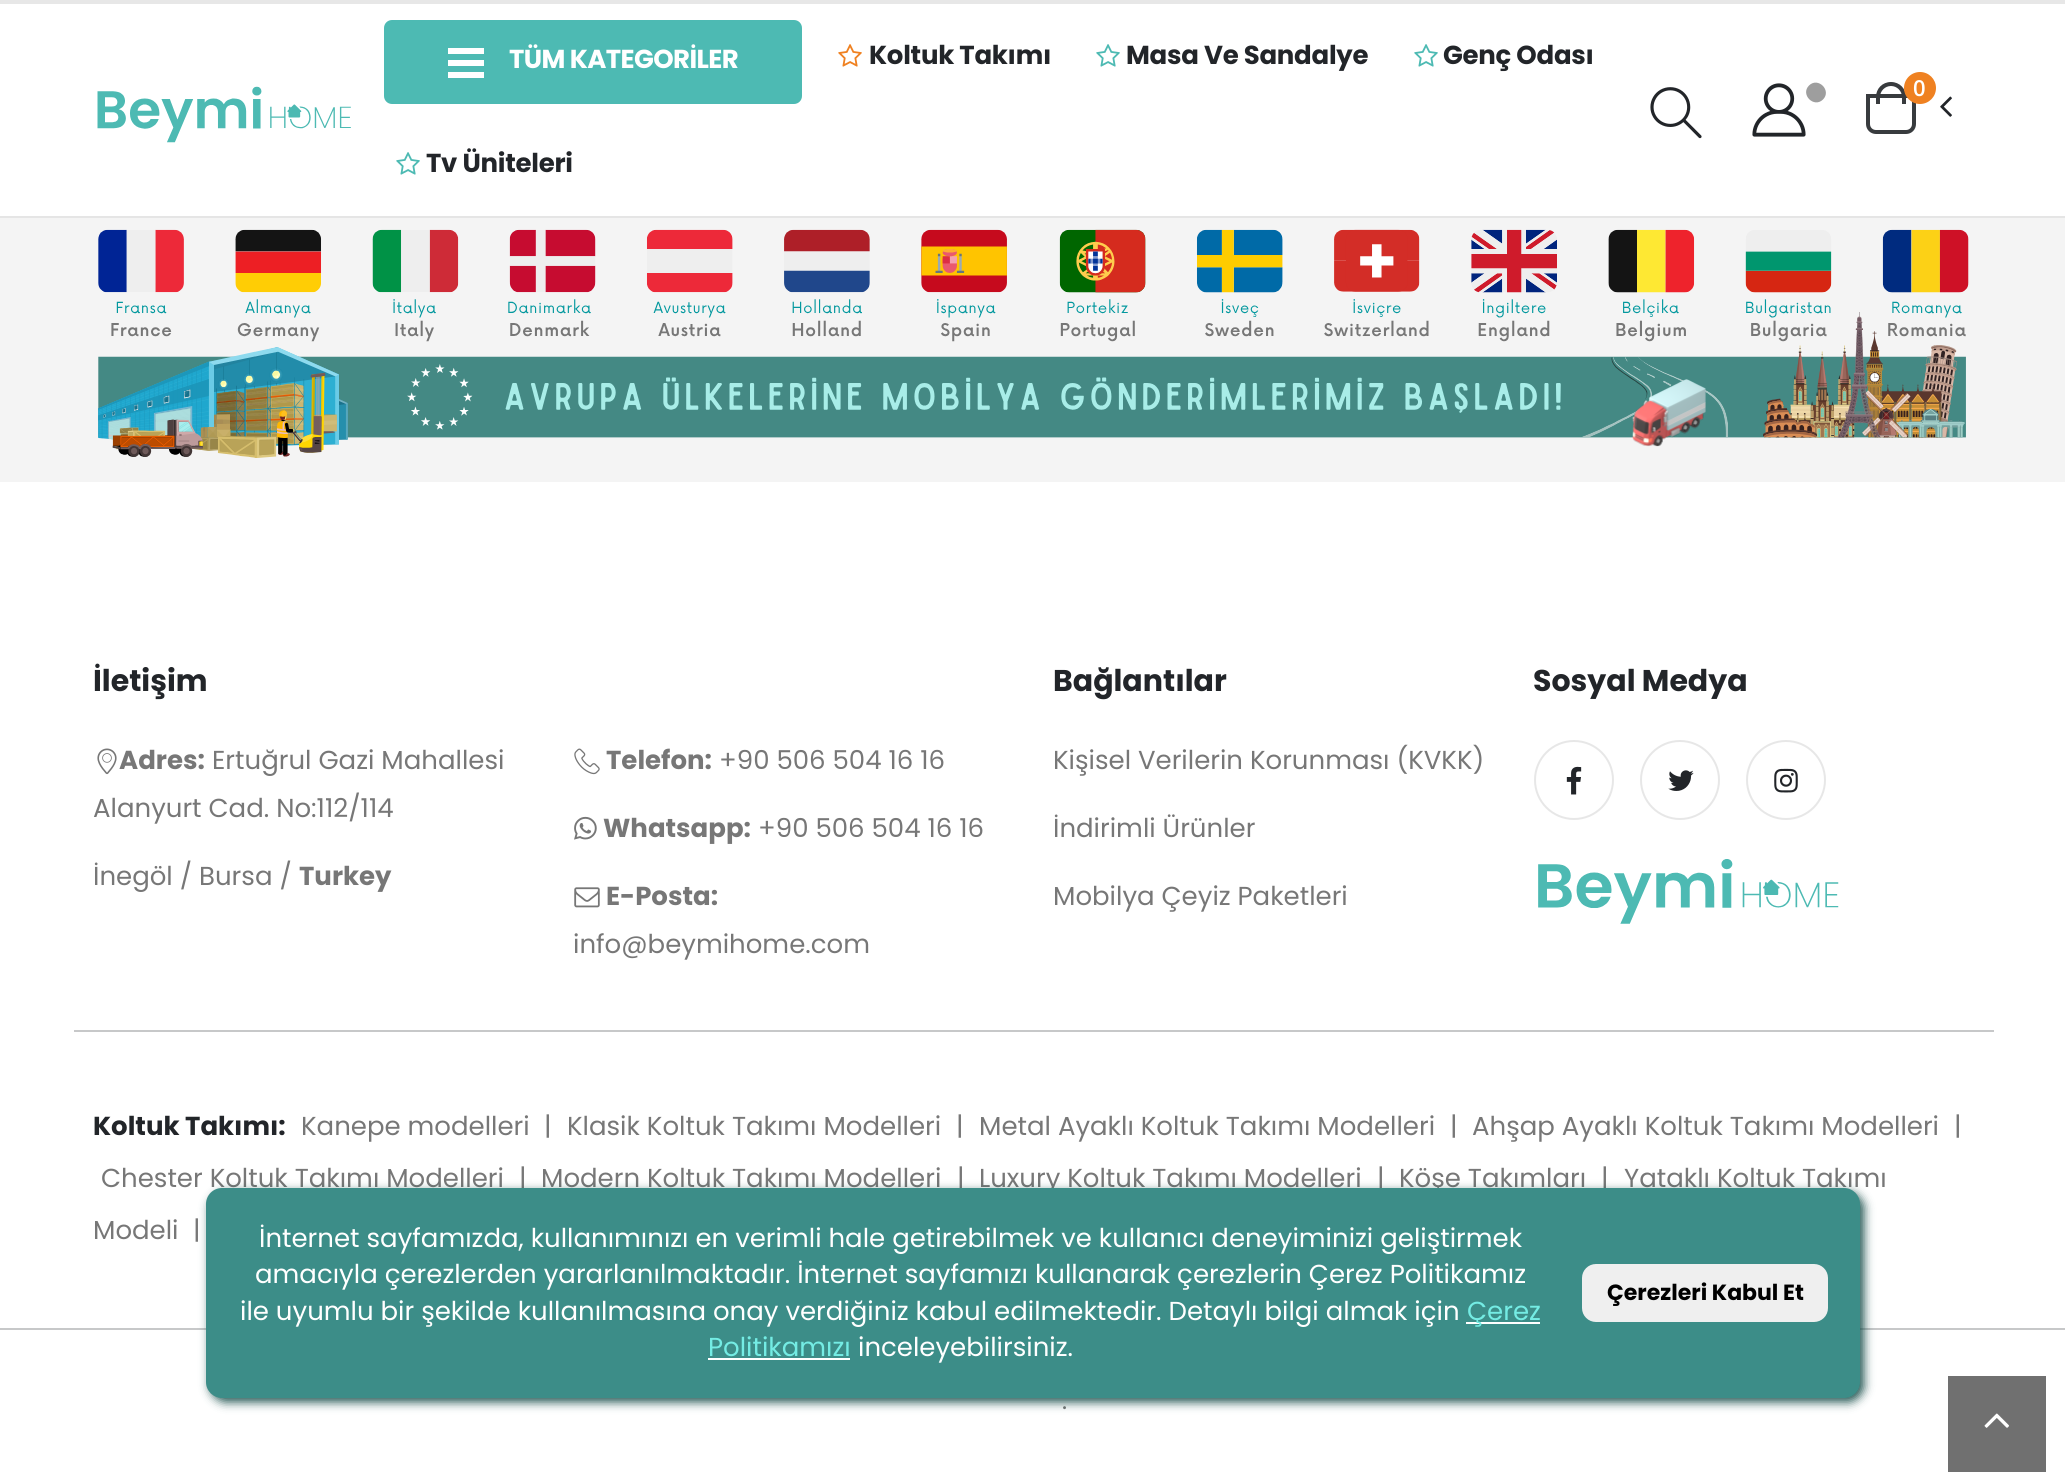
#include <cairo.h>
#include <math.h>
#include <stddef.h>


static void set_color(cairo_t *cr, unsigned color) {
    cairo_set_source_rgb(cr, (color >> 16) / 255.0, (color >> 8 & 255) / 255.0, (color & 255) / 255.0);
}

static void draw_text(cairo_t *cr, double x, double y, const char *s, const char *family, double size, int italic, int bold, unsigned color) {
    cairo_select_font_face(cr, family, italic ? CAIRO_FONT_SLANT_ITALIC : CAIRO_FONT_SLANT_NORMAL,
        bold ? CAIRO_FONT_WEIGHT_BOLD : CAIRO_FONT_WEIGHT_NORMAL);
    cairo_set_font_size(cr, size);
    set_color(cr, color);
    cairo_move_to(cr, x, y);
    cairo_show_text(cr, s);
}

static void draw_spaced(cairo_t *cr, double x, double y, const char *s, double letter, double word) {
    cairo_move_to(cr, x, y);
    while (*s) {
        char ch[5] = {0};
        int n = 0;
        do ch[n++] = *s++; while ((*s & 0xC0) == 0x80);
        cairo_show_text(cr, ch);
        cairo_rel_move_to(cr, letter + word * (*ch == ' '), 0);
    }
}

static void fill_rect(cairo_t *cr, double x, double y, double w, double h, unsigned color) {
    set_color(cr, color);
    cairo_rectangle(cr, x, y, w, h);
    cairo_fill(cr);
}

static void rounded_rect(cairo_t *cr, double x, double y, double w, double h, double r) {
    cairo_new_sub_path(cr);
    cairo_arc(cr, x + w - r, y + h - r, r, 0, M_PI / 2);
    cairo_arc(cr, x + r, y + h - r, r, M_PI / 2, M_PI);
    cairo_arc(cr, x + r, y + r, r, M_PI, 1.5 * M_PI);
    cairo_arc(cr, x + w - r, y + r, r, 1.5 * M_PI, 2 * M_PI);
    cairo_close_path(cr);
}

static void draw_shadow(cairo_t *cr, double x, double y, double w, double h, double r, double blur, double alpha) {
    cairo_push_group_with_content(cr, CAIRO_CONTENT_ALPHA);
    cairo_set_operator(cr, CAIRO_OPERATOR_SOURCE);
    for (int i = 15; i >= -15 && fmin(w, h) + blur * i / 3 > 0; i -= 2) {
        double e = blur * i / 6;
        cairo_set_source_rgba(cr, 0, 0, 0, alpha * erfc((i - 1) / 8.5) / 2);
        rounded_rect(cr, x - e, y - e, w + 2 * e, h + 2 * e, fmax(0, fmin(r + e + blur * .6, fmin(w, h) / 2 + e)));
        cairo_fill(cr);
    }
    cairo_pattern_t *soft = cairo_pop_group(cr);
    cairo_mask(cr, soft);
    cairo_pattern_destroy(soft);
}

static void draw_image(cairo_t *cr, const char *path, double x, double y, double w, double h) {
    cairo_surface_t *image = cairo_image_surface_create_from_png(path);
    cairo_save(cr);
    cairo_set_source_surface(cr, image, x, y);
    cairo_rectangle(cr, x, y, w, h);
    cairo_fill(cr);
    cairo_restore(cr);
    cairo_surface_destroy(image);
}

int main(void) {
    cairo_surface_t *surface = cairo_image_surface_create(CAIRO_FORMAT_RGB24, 2065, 1472);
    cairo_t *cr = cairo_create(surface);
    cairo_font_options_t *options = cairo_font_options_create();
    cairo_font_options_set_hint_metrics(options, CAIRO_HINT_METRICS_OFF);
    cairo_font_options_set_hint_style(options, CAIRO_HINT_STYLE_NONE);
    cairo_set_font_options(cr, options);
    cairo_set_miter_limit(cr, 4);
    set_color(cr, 0xFFFFFF);
    cairo_paint(cr);
    fill_rect(cr, 0, 216, 2065, 2, 0xE5E5E5);
    fill_rect(cr, 0, 0, 2065, 4, 0xE7E7E7);
    draw_image(cr, "assets/img1.png", 97, 86, 254, 57);
    set_color(cr, 0x4DBAB3);
    rounded_rect(cr, 384, 20, 418, 84, 8);
    cairo_fill(cr);
    fill_rect(cr, 448, 60, 36, 6, 0xFFFFFF);
    fill_rect(cr, 448, 48, 36, 6, 0xFFFFFF);
    fill_rect(cr, 448, 72, 36, 6, 0xFFFFFF);
    cairo_select_font_face(cr, "Poppins", CAIRO_FONT_SLANT_NORMAL, CAIRO_FONT_WEIGHT_BOLD);
    cairo_set_font_size(cr, 26);
    draw_spaced(cr, 509, 68, "TÜM KATEGORİLER", -0.6, 0);
    draw_image(cr, "assets/img2.png", 838, 44, 24, 23);
    set_color(cr, 0x222529);
    draw_spaced(cr, 869, 64, "Koltuk Takımı", -0.25, 0);
    draw_image(cr, "assets/img3.png", 1096, 44, 24, 23);
    draw_spaced(cr, 1126, 64, "Masa Ve Sandalye", -0.25, 0);
    draw_image(cr, "assets/img3.png", 1414, 44, 24, 23);
    draw_spaced(cr, 1443, 64, "Genç Odası", -0.25, 0);
    draw_image(cr, "assets/img3.png", 396, 152, 24, 23);
    draw_spaced(cr, 426, 172, "Tv Üniteleri", -0.25, 0);
    draw_image(cr, "assets/img4.png", 1650, 87, 52, 52);
    draw_image(cr, "assets/img5.png", 1752, 83, 54, 54);
    set_color(cr, 0x9E9E9E);
    cairo_new_path(cr);
    cairo_move_to(cr, 1809, 85.5);
    cairo_curve_to(cr, 1818, 76.5, 1832, 90.5, 1823, 99.5);
    cairo_curve_to(cr, 1814, 108.5, 1800, 94.5, 1809, 85.5);
    cairo_close_path(cr);
    cairo_fill(cr);
    cairo_new_path(cr);
    cairo_move_to(cr, 1868, 96);
    cairo_line_to(cr, 1914, 96);
    cairo_line_to(cr, 1914, 124);
    cairo_curve_to(cr, 1914, 128.5, 1910.5, 132, 1906, 132);
    cairo_line_to(cr, 1876, 132);
    cairo_curve_to(cr, 1871.5, 132, 1868, 128.5, 1868, 124);
    cairo_close_path(cr);
    set_color(cr, 0x383B3E);
    cairo_set_line_width(cr, 4);
    cairo_stroke(cr);
    cairo_set_fill_rule(cr, CAIRO_FILL_RULE_EVEN_ODD);
    cairo_new_path(cr);
    cairo_move_to(cr, 1891, 82);
    cairo_curve_to(cr, 1899.5, 82, 1906, 88.5, 1906, 97);
    cairo_line_to(cr, 1906, 104);
    cairo_line_to(cr, 1876, 104);
    cairo_line_to(cr, 1876, 97);
    cairo_curve_to(cr, 1876, 88.5, 1882.5, 82, 1891, 82);
    cairo_close_path(cr);
    cairo_move_to(cr, 1891, 86);
    cairo_curve_to(cr, 1897, 86, 1902, 91, 1902, 97);
    cairo_line_to(cr, 1902, 104);
    cairo_line_to(cr, 1880, 104);
    cairo_line_to(cr, 1880, 97);
    cairo_curve_to(cr, 1880, 91, 1885, 86, 1891, 86);
    cairo_close_path(cr);
    cairo_fill(cr);
    set_color(cr, 0xEF8121);
    cairo_arc(cr, 1920, 88, 16, 0, 2 * M_PI);
    cairo_fill(cr);
    draw_text(cr, 1913, 96, "0", "Open Sans SemiBold", 22, 0, 0, 0xFFFFFF);
    draw_image(cr, "assets/img6.png", 1940, 96, 12, 21);
    fill_rect(cr, 0, 218, 2065, 264, 0xF4F4F4);
    draw_image(cr, "assets/img7.png", 98, 229, 1871, 229);
    draw_text(cr, 93, 691, "İletişim", "Poppins", 30, 0, 1, 0x222529);
    draw_image(cr, "assets/img8.png", 97, 748, 20, 27);
    draw_text(cr, 119, 769, "Adres:", "Poppins", 26, 0, 1, 0x777777);
    draw_text(cr, 212, 769, "Ertuğrul Gazi Mahallesi", "Poppins", 26, 0, 0, 0x777777);
    draw_text(cr, 93, 817, "Alanyurt Cad. No:112/114", "Poppins", 26, 0, 0, 0x777777);
    draw_text(cr, 93, 885, "İnegöl / Bursa /", "Poppins", 26, 0, 0, 0x777777);
    draw_text(cr, 299, 885, "Turkey", "Poppins", 26, 0, 1, 0x777777);
    draw_text(cr, 1053, 691, "Bağlantılar", "Poppins", 30, 0, 1, 0x222529);
    draw_text(cr, 1053, 769, "Kişisel Verilerin Korunması (KVKK)", "Poppins", 26, 0, 0, 0x777777);
    draw_text(cr, 1053, 837, "İndirimli Ürünler", "Poppins", 26, 0, 0, 0x777777);
    draw_text(cr, 1053, 905, "Mobilya Çeyiz Paketleri", "Poppins", 26, 0, 0, 0x777777);
    draw_text(cr, 1533, 691, "Sosyal Medya", "Poppins", 30, 0, 1, 0x222529);
    cairo_new_path(cr);
    cairo_arc(cr, 1574, 780, 39, 0, 2 * M_PI);
    set_color(cr, 0xE7E7E7);
    cairo_set_line_width(cr, 2);
    cairo_stroke(cr);
    draw_image(cr, "assets/img9.png", 1566, 766, 16, 29);
    cairo_arc(cr, 1680, 780, 39, 0, 2 * M_PI);
    cairo_stroke(cr);
    draw_image(cr, "assets/img10.png", 1668, 770, 26, 21);
    cairo_arc(cr, 1786, 780, 39, 0, 2 * M_PI);
    cairo_stroke(cr);
    draw_image(cr, "assets/img11.png", 1774, 768, 24, 25);
    draw_image(cr, "assets/img12.png", 1538, 859, 301, 65);
    draw_image(cr, "assets/img13.png", 574, 748, 26, 27);
    draw_text(cr, 606, 769, "Telefon:", "Poppins", 26, 0, 1, 0x777777);
    draw_text(cr, 719, 769, "+90 506 504 16 16", "Poppins", 26, 0, 0, 0x777777);
    draw_image(cr, "assets/img14.png", 574, 816, 23, 24);
    draw_text(cr, 603, 837, "Whatsapp:", "Poppins", 26, 0, 1, 0x777777);
    draw_text(cr, 758, 837, "+90 506 504 16 16", "Poppins", 26, 0, 0, 0x777777);
    draw_image(cr, "assets/img15.png", 574, 887, 26, 21);
    draw_text(cr, 606, 905, "E-Posta:", "Poppins", 26, 0, 1, 0x777777);
    draw_text(cr, 573, 953, "info@beymihome.com", "Poppins", 26, 0, 0, 0x777777);
    fill_rect(cr, 74, 1030, 1920, 2, 0xC7C8C9);
    draw_text(cr, 93, 1135, "Koltuk Takımı:", "Poppins", 26, 0, 1, 0x222529);
    draw_text(cr, 301, 1135, "Kanepe modelleri", "Poppins", 26, 0, 0, 0x777777);
    draw_text(cr, 544, 1135, "|", "Poppins", 26, 0, 0, 0x777777);
    draw_text(cr, 567, 1135, "Klasik Koltuk Takımı Modelleri", "Poppins", 26, 0, 0, 0x777777);
    draw_text(cr, 956, 1135, "|", "Poppins", 26, 0, 0, 0x777777);
    draw_text(cr, 979, 1135, "Metal Ayaklı Koltuk Takımı Modelleri", "Poppins", 26, 0, 0, 0x777777);
    draw_text(cr, 1450, 1135, "|", "Poppins", 26, 0, 0, 0x777777);
    draw_text(cr, 1472, 1135, "Ahşap Ayaklı Koltuk Takımı Modelleri", "Poppins", 26, 0, 0, 0x777777);
    draw_text(cr, 1954, 1135, "|", "Poppins", 26, 0, 0, 0x777777);
    draw_text(cr, 101, 1187, "Chester Koltuk Takımı Modelleri", "Poppins", 26, 0, 0, 0x777777);
    draw_text(cr, 519, 1187, "|", "Poppins", 26, 0, 0, 0x777777);
    draw_text(cr, 541, 1187, "Modern Koltuk Takımı Modelleri", "Poppins", 26, 0, 0, 0x777777);
    draw_text(cr, 957, 1187, "|", "Poppins", 26, 0, 0, 0x777777);
    draw_text(cr, 979, 1187, "Luxury Koltuk Takımı Modelleri", "Poppins", 26, 0, 0, 0x777777);
    draw_text(cr, 1377, 1187, "|", "Poppins", 26, 0, 0, 0x777777);
    draw_text(cr, 1399, 1187, "Köşe Takımları", "Poppins", 26, 0, 0, 0x777777);
    draw_text(cr, 1601, 1187, "|", "Poppins", 26, 0, 0, 0x777777);
    draw_text(cr, 1624, 1187, "Yataklı Koltuk Takımı", "Poppins", 26, 0, 0, 0x777777);
    draw_text(cr, 93, 1239, "Modeli", "Poppins", 26, 0, 0, 0x777777);
    draw_text(cr, 193, 1239, "|", "Poppins", 26, 0, 0, 0x777777);
    fill_rect(cr, 0, 1328, 2065, 2, 0xC7C8C9);
    draw_text(cr, 1062, 1409, ".", "Poppins", 24, 0, 0, 0x777777);
    set_color(cr, 0x114945);
    draw_shadow(cr, 210, 1192, 1654, 210, 16, 5, 0.94);
    set_color(cr, 0x3C8D88);
    rounded_rect(cr, 206, 1188, 1654, 210, 16);
    cairo_fill(cr);
    draw_text(cr, 259, 1247, "İnternet sayfamızda, kullanımınızı en verimli hale getirebilmek ve kullanıcı deneyiminizi geliştirmek", "Poppins", 26, 0, 0, 0xFFFFFF);
    draw_text(cr, 255, 1283, "amacıyla çerezlerden yararlanılmaktadır. İnternet sayfamızı kullanarak çerezlerin Çerez Politikamız", "Poppins", 26, 0, 0, 0xFFFFFF);
    draw_text(cr, 240, 1320, "ile uyumlu bir şekilde kullanılmasına onay verdiğiniz kabul edilmektedir. Detaylı bilgi almak için", "Poppins", 26, 0, 0, 0xFFFFFF);
    fill_rect(cr, 1466, 1322, 74, 2, 0xFFFFFF);
    draw_text(cr, 1467, 1320, "Çerez", "Poppins", 26, 0, 0, 0x74ECE4);
    draw_text(cr, 708, 1356, "Politikamızı", "Poppins", 26, 0, 0, 0x74ECE4);
    fill_rect(cr, 708, 1358, 142, 2, 0xFFFFFF);
    draw_text(cr, 858, 1356, "inceleyebilirsiniz.", "Poppins", 26, 0, 0, 0xFFFFFF);
    set_color(cr, 0xEFEFEF);
    rounded_rect(cr, 1582, 1264, 246, 58, 14);
    cairo_fill(cr);
    draw_text(cr, 1607, 1300, "Çerezleri Kabul Et", "Poppins", 22, 0, 1, 0x000000);
    fill_rect(cr, 1948, 1376, 98, 96, 0x707070);
    draw_image(cr, "assets/img16.png", 1984, 1413, 25, 15);
    cairo_surface_write_to_png(surface, "output.png");
    cairo_font_options_destroy(options);
    cairo_destroy(cr);
    cairo_surface_destroy(surface);
    return 0;
}
